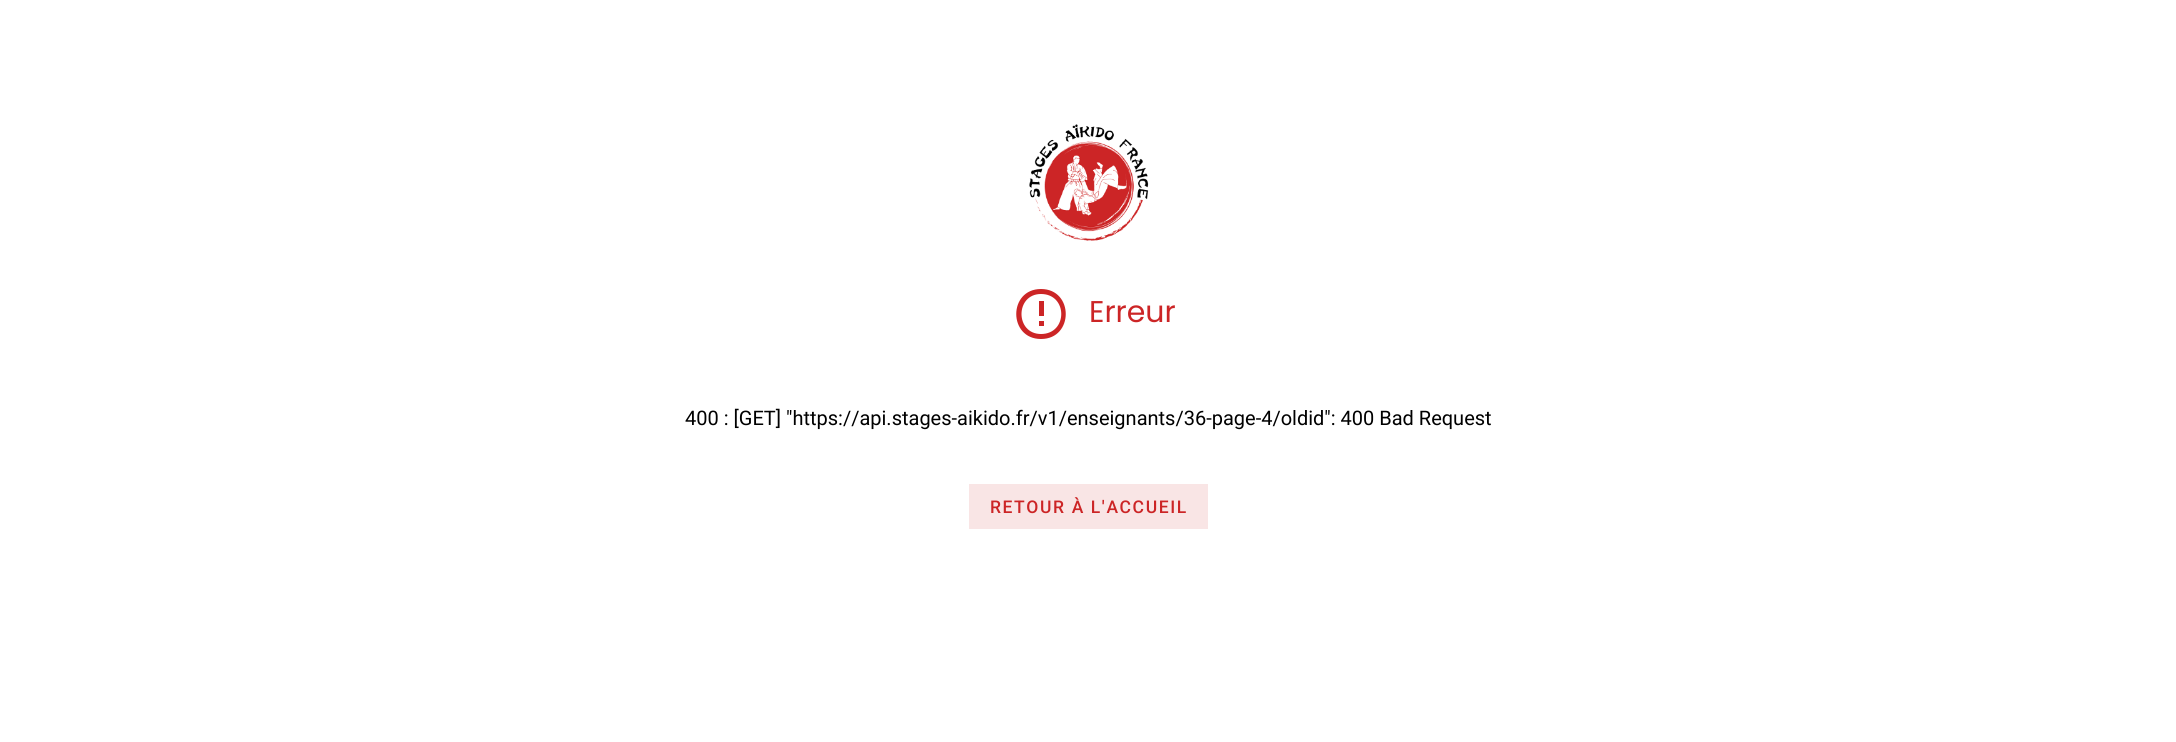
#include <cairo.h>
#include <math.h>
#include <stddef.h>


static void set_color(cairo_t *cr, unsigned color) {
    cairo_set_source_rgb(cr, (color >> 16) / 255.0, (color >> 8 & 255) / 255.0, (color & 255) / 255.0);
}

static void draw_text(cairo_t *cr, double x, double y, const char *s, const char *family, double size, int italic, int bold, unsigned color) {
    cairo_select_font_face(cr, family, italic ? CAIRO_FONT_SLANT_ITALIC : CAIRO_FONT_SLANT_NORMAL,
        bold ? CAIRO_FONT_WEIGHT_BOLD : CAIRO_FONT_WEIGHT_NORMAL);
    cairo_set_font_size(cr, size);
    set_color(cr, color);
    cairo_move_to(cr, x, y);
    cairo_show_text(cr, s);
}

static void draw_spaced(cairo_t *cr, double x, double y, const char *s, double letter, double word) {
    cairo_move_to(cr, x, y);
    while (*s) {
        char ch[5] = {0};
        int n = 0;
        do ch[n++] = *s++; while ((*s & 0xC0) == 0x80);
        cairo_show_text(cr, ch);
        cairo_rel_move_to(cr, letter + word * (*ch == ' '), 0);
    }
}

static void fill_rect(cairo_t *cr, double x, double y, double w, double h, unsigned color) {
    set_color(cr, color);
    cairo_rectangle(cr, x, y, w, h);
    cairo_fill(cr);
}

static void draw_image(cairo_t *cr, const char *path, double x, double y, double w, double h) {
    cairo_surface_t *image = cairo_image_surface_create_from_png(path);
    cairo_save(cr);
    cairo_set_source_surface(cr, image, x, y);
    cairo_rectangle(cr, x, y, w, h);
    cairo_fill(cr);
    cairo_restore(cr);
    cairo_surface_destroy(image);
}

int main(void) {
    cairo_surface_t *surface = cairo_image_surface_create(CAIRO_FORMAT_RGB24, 2176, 742);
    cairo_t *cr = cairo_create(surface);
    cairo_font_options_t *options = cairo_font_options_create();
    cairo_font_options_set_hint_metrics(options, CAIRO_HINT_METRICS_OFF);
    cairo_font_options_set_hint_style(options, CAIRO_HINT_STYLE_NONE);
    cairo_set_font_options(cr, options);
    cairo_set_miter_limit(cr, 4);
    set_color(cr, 0xFFFFFF);
    cairo_paint(cr);
    fill_rect(cr, 969, 484, 239, 45, 0xF9E5E5);
    draw_image(cr, "assets/img1.png", 1029, 124, 120, 117);
    set_color(cr, 0xCC2526);
    cairo_new_path(cr);
    cairo_move_to(cr, 1039, 321);
    cairo_line_to(cr, 1044, 321);
    cairo_line_to(cr, 1044, 326);
    cairo_line_to(cr, 1039, 326);
    cairo_close_path(cr);
    cairo_move_to(cr, 1039, 301);
    cairo_line_to(cr, 1044, 301);
    cairo_line_to(cr, 1044, 316);
    cairo_line_to(cr, 1039, 316);
    cairo_close_path(cr);
    cairo_move_to(cr, 1041, 289);
    cairo_curve_to(cr, 1008, 289, 1008, 339, 1041, 339);
    cairo_curve_to(cr, 1074, 339, 1074, 289, 1041, 289);
    cairo_close_path(cr);
    cairo_move_to(cr, 1041, 334);
    cairo_curve_to(cr, 1015, 334, 1015, 294, 1041, 294);
    cairo_curve_to(cr, 1068, 294, 1068, 334, 1041, 334);
    cairo_close_path(cr);
    cairo_fill(cr);
    draw_text(cr, 1089, 322, "Erreur", "Poppins", 30, 0, 0, 0xCC2526);
    draw_text(cr, 685, 425, "400 : [GET] \"https://api.stages-aikido.fr/v1/enseignants/36-page-4/oldid\": 400 Bad Request", "Roboto", 20, 0, 0, 0x000000);
    cairo_select_font_face(cr, "Roboto Medium", CAIRO_FONT_SLANT_NORMAL, CAIRO_FONT_WEIGHT_NORMAL);
    cairo_set_font_size(cr, 17.5);
    set_color(cr, 0xCC2526);
    draw_spaced(cr, 990, 513, "RETOUR À L'ACCUEIL", 1.6, 0);
    cairo_surface_write_to_png(surface, "output.png");
    cairo_font_options_destroy(options);
    cairo_destroy(cr);
    cairo_surface_destroy(surface);
    return 0;
}
